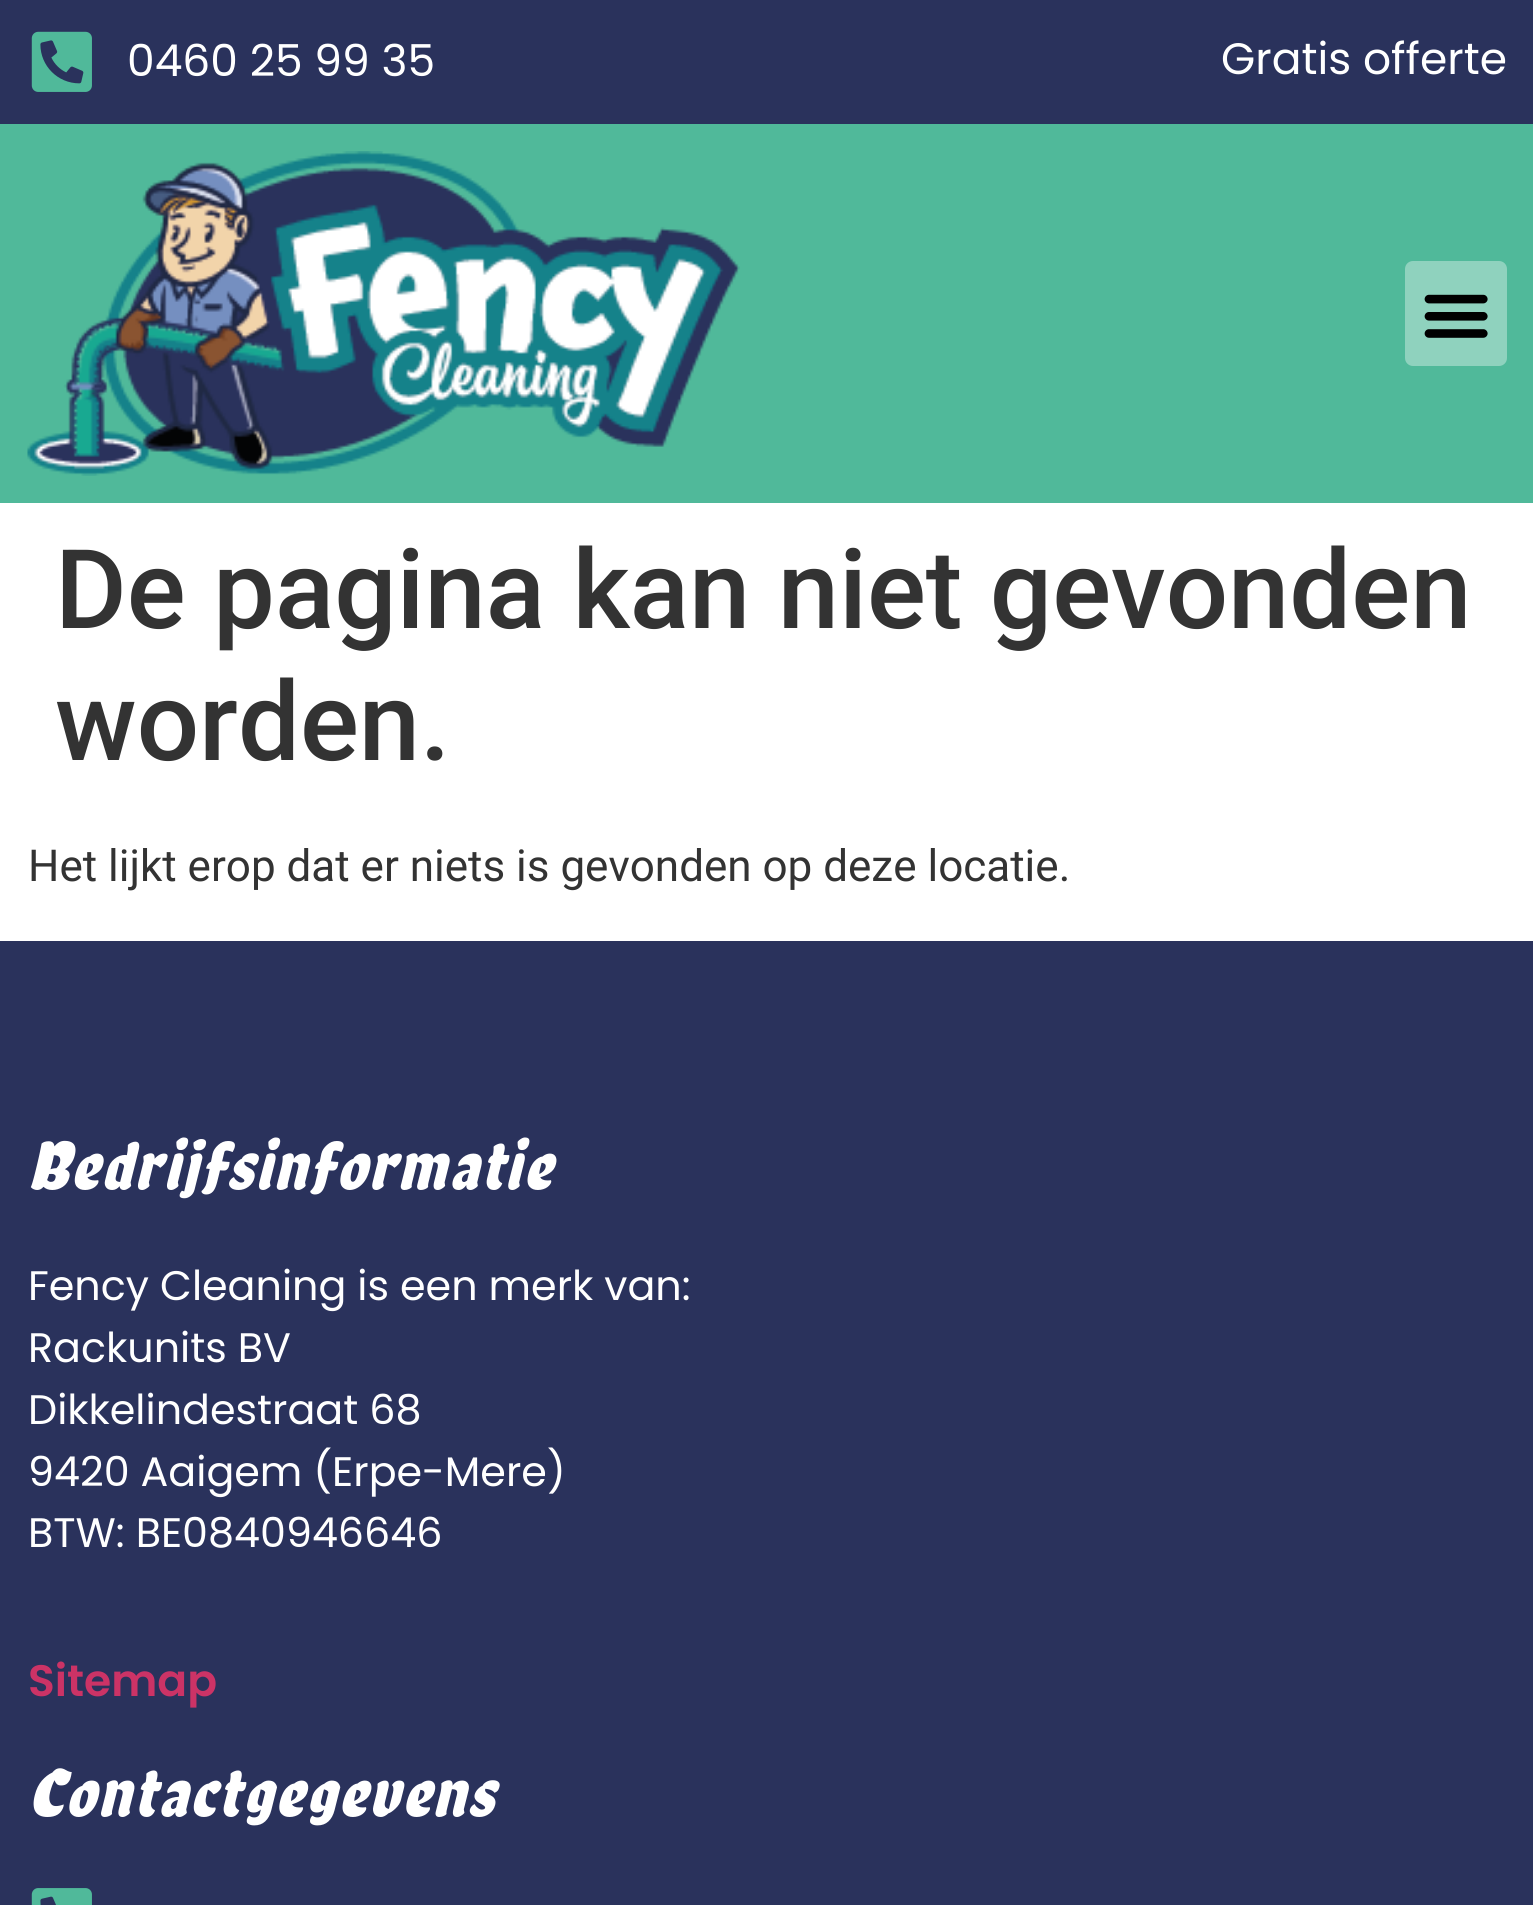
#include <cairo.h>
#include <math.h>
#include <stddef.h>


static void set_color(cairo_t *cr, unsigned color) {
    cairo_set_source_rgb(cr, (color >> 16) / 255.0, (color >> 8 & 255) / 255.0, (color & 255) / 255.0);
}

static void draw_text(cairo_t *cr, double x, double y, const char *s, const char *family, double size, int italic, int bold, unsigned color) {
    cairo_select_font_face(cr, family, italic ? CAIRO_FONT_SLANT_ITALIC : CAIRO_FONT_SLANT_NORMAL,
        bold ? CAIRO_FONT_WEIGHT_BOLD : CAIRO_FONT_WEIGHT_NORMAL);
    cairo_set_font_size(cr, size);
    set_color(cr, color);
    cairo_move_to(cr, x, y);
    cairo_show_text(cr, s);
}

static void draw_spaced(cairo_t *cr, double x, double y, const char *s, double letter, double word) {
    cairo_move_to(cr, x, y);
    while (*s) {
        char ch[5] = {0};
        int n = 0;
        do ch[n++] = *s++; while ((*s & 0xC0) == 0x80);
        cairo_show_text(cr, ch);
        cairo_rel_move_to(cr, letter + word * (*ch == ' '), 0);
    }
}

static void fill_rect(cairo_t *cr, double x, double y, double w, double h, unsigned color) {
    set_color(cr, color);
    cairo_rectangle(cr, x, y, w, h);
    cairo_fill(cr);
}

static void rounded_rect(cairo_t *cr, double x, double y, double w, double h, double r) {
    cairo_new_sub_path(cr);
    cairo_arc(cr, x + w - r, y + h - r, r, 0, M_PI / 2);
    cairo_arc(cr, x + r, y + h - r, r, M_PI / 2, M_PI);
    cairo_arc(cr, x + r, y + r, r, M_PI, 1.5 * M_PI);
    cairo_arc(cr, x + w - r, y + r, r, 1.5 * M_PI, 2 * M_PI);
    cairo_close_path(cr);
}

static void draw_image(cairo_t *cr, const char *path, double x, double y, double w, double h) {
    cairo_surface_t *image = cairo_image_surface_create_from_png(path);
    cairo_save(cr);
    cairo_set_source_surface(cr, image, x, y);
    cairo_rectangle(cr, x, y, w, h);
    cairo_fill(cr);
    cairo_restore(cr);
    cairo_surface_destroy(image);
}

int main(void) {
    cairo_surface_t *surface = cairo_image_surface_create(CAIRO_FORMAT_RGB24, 1533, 1905);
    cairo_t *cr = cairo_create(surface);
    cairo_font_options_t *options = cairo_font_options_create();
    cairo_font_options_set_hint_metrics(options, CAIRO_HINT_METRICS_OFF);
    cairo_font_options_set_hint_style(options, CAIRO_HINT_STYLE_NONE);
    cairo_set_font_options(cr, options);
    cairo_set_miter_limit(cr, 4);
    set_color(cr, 0xFFFFFF);
    cairo_paint(cr);
    fill_rect(cr, 0, 0, 1533, 124, 0x2A325C);
    draw_image(cr, "assets/img1.png", 31, 31, 61, 61);
    draw_text(cr, 127, 76, "0460 25 99 35", "Poppins", 44, 0, 0, 0xFFFFFF);
    draw_text(cr, 1221, 74, "Gratis offerte", "Poppins", 44, 0, 0, 0xFFFFFF);
    fill_rect(cr, 0, 124, 1533, 379, 0x50B99A);
    draw_image(cr, "assets/img2.png", 27, 151, 713, 325);
    set_color(cr, 0x8FD2BE);
    rounded_rect(cr, 1405, 261, 102, 105, 8);
    cairo_fill(cr);
    draw_image(cr, "assets/img3.png", 1424, 294, 64, 44);
    draw_text(cr, 55, 628, "De pagina kan niet gevonden", "Roboto Medium", 110, 0, 0, 0x333333);
    draw_text(cr, 55, 760, "worden.", "Roboto Medium", 110, 0, 0, 0x333333);
    draw_text(cr, 28, 881, "Het lijkt erop dat er niets is gevonden op deze locatie.", "Roboto", 44, 0, 0, 0x333333);
    fill_rect(cr, 0, 941, 1533, 964, 0x2A325C);
    cairo_select_font_face(cr, "Chela One", CAIRO_FONT_SLANT_ITALIC, CAIRO_FONT_WEIGHT_NORMAL);
    cairo_set_font_size(cr, 68.75);
    set_color(cr, 0xFFFFFF);
    draw_spaced(cr, 28, 1190, "Bedrijfsinformatie", 2.75, 0);
    draw_text(cr, 28, 1300, "Fency Cleaning is een merk van:", "Poppins", 41.25, 0, 0, 0xFFFFFF);
    draw_text(cr, 28, 1362, "Rackunits BV", "Poppins", 41.25, 0, 0, 0xFFFFFF);
    draw_text(cr, 28, 1424, "Dikkelindestraat 68", "Poppins", 41.25, 0, 0, 0xFFFFFF);
    draw_text(cr, 28, 1486, "9420 Aaigem (Erpe-Mere)", "Poppins", 41.25, 0, 0, 0xFFFFFF);
    draw_text(cr, 28, 1547, "BTW: BE0840946646", "Poppins", 41.25, 0, 0, 0xFFFFFF);
    draw_text(cr, 28, 1696, "Sitemap", "Poppins SemiBold", 44, 0, 0, 0xCC3366);
    cairo_select_font_face(cr, "Chela One", CAIRO_FONT_SLANT_ITALIC, CAIRO_FONT_WEIGHT_NORMAL);
    cairo_set_font_size(cr, 68.75);
    set_color(cr, 0xFFFFFF);
    draw_spaced(cr, 28, 1817, "Contactgegevens", 2.75, 0);
    draw_image(cr, "assets/img4.png", 31, 1888, 61, 17);
    cairo_surface_write_to_png(surface, "output.png");
    cairo_font_options_destroy(options);
    cairo_destroy(cr);
    cairo_surface_destroy(surface);
    return 0;
}
